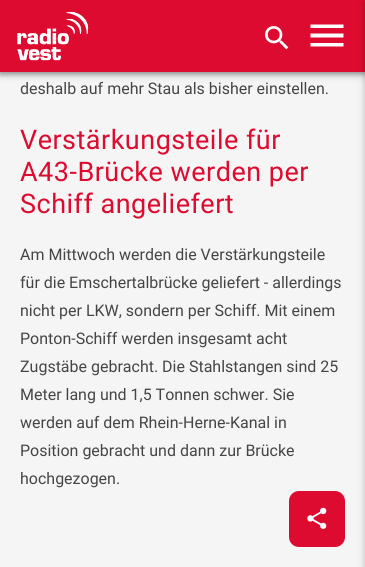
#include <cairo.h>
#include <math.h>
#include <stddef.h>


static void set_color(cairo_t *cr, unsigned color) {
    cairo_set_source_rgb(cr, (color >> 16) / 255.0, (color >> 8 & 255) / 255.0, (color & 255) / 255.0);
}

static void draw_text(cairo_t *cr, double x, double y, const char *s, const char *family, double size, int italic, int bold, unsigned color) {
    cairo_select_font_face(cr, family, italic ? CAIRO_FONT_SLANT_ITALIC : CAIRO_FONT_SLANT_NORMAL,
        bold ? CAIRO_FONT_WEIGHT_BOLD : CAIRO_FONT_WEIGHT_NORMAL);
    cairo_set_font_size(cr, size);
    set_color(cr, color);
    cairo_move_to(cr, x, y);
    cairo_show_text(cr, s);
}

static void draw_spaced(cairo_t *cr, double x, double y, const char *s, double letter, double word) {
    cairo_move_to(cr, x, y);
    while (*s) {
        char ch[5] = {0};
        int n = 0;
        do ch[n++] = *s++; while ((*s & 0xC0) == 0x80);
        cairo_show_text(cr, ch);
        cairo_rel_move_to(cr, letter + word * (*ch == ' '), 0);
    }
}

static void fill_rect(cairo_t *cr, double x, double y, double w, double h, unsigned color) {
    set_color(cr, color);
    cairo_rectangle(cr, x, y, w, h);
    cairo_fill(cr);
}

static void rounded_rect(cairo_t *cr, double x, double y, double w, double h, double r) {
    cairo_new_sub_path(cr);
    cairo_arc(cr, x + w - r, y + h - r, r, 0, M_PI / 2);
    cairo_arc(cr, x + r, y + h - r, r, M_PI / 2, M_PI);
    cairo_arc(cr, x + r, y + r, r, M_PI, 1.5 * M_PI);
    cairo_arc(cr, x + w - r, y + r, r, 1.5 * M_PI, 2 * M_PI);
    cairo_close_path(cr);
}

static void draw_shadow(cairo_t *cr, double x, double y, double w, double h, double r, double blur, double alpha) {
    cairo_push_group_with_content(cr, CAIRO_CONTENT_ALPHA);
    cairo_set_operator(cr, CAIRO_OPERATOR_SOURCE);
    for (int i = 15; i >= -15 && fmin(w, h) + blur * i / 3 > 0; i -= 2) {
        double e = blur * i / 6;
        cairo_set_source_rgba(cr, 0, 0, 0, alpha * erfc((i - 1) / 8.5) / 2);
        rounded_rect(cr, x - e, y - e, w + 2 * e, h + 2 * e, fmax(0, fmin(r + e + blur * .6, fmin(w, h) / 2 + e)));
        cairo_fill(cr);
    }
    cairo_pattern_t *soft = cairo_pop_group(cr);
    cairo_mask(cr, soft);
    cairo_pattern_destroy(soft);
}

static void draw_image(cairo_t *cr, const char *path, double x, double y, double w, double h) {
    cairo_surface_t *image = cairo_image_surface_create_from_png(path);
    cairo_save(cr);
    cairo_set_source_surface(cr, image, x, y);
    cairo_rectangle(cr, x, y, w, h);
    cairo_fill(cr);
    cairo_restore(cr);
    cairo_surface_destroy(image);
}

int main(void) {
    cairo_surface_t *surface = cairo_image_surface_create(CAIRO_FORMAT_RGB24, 365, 567);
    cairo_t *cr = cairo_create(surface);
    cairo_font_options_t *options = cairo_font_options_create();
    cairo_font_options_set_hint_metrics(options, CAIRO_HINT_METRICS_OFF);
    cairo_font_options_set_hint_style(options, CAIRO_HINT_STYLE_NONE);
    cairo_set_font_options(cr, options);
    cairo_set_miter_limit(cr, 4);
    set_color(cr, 0xF5F5F5);
    cairo_paint(cr);
    set_color(cr, 0x000000);
    draw_shadow(cr, 0, 2, 365, 72, 0, 5, 0.12);
    draw_shadow(cr, 0, 2, 365, 72, 0, 2.5, 0.16);
    draw_shadow(cr, 0, 2, 365, 72, 0, 5, 0.12);
    draw_shadow(cr, 0, 2, 365, 72, 0, 2.5, 0.16);
    fill_rect(cr, 0, 0, 365, 72, 0xDD0B2F);
    draw_image(cr, "assets/img1.png", 17, 11, 72, 50);
    draw_image(cr, "assets/img2.png", 265, 26, 24, 24);
    set_color(cr, 0xFFFFFF);
    cairo_new_path(cr);
    cairo_move_to(cr, 310.5, 24.5);
    cairo_line_to(cr, 343.5, 24.5);
    cairo_line_to(cr, 343.5, 28);
    cairo_line_to(cr, 310.5, 28);
    cairo_close_path(cr);
    cairo_move_to(cr, 310.5, 33.5);
    cairo_line_to(cr, 343.5, 33.5);
    cairo_line_to(cr, 343.5, 37.5);
    cairo_line_to(cr, 310.5, 37.5);
    cairo_close_path(cr);
    cairo_move_to(cr, 310.5, 43);
    cairo_line_to(cr, 343.5, 43);
    cairo_line_to(cr, 343.5, 46.5);
    cairo_line_to(cr, 310.5, 46.5);
    cairo_close_path(cr);
    cairo_fill(cr);
    draw_text(cr, 20, 94, "deshalb auf mehr Stau als bisher einstellen.", "Roboto", 16, 0, 0, 0x454545);
    cairo_set_font_size(cr, 27);
    set_color(cr, 0xDD0B2F);
    draw_spaced(cr, 20, 149, "Verstärkungsteile für", 0.5, 0);
    draw_spaced(cr, 20, 181, "A43-Brücke werden per", 0.5, 0);
    draw_spaced(cr, 20, 213, "Schiff angeliefert", 0.5, 0);
    draw_text(cr, 20, 260, "Am Mittwoch werden die Verstärkungsteile", "Roboto", 16, 0, 0, 0x454545);
    draw_text(cr, 20, 288, "für die Emschertalbrücke geliefert - allerdings", "Roboto", 16, 0, 0, 0x454545);
    draw_text(cr, 20, 316, "nicht per LKW, sondern per Schiff. Mit einem", "Roboto", 16, 0, 0, 0x454545);
    draw_text(cr, 20, 344, "Ponton-Schiff werden insgesamt acht", "Roboto", 16, 0, 0, 0x454545);
    draw_text(cr, 20, 372, "Zugstäbe gebracht. Die Stahlstangen sind 25", "Roboto", 16, 0, 0, 0x454545);
    draw_text(cr, 20, 400, "Meter lang und 1,5 Tonnen schwer. Sie", "Roboto", 16, 0, 0, 0x454545);
    draw_text(cr, 20, 428, "werden auf dem Rhein-Herne-Kanal in", "Roboto", 16, 0, 0, 0x454545);
    draw_text(cr, 20, 456, "Position gebracht und dann zur Brücke", "Roboto", 16, 0, 0, 0x454545);
    draw_text(cr, 20, 484, "hochgezogen.", "Roboto", 16, 0, 0, 0x454545);
    set_color(cr, 0x000000);
    draw_shadow(cr, 365, 2, 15, 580, 0, 5, 0.12);
    draw_shadow(cr, 365, 2, 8, 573, 0, 2.5, 0.16);
    set_color(cr, 0xDD0B2F);
    rounded_rect(cr, 289, 491, 56, 56, 10);
    cairo_fill(cr);
    draw_image(cr, "assets/img3.png", 307, 507, 20, 22);
    cairo_surface_write_to_png(surface, "output.png");
    cairo_font_options_destroy(options);
    cairo_destroy(cr);
    cairo_surface_destroy(surface);
    return 0;
}
